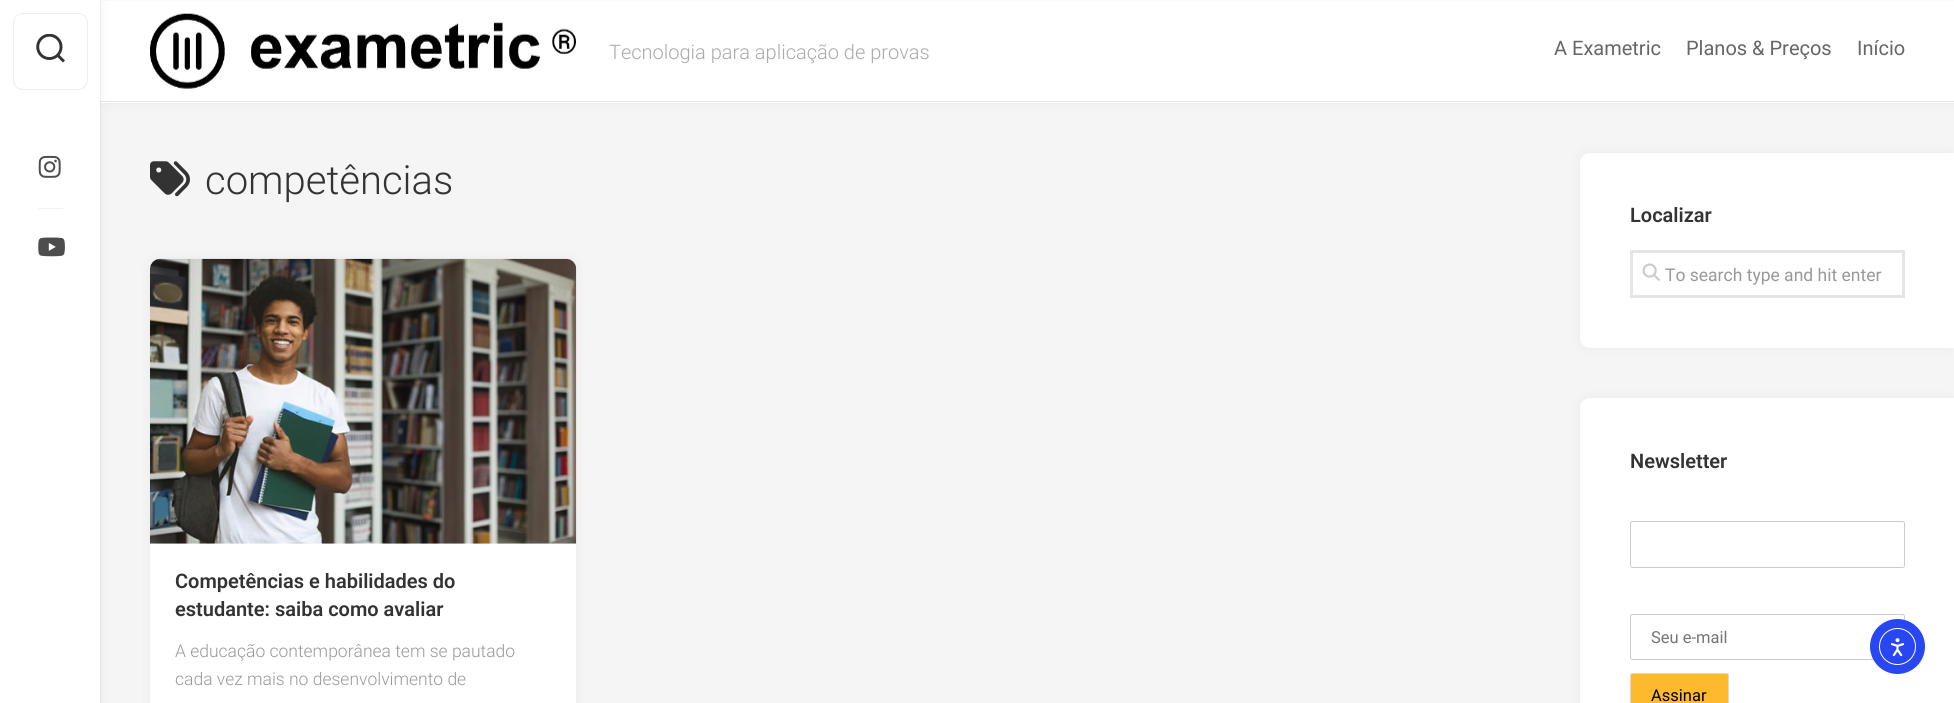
#include <cairo.h>
#include <math.h>
#include <stddef.h>


static void set_color(cairo_t *cr, unsigned color) {
    cairo_set_source_rgb(cr, (color >> 16) / 255.0, (color >> 8 & 255) / 255.0, (color & 255) / 255.0);
}

static void draw_text(cairo_t *cr, double x, double y, const char *s, const char *family, double size, int italic, int bold, unsigned color) {
    cairo_select_font_face(cr, family, italic ? CAIRO_FONT_SLANT_ITALIC : CAIRO_FONT_SLANT_NORMAL,
        bold ? CAIRO_FONT_WEIGHT_BOLD : CAIRO_FONT_WEIGHT_NORMAL);
    cairo_set_font_size(cr, size);
    set_color(cr, color);
    cairo_move_to(cr, x, y);
    cairo_show_text(cr, s);
}

static void fill_rect(cairo_t *cr, double x, double y, double w, double h, unsigned color) {
    set_color(cr, color);
    cairo_rectangle(cr, x, y, w, h);
    cairo_fill(cr);
}

static void rounded_rect(cairo_t *cr, double x, double y, double w, double h, double r) {
    cairo_new_sub_path(cr);
    cairo_arc(cr, x + w - r, y + h - r, r, 0, M_PI / 2);
    cairo_arc(cr, x + r, y + h - r, r, M_PI / 2, M_PI);
    cairo_arc(cr, x + r, y + r, r, M_PI, 1.5 * M_PI);
    cairo_arc(cr, x + w - r, y + r, r, 1.5 * M_PI, 2 * M_PI);
    cairo_close_path(cr);
}

static void draw_shadow(cairo_t *cr, double x, double y, double w, double h, double r, double blur, double alpha) {
    cairo_push_group_with_content(cr, CAIRO_CONTENT_ALPHA);
    cairo_set_operator(cr, CAIRO_OPERATOR_SOURCE);
    for (int i = 15; i >= -15 && fmin(w, h) + blur * i / 3 > 0; i -= 2) {
        double e = blur * i / 6;
        cairo_set_source_rgba(cr, 0, 0, 0, alpha * erfc((i - 1) / 8.5) / 2);
        rounded_rect(cr, x - e, y - e, w + 2 * e, h + 2 * e, fmax(0, fmin(r + e + blur * .6, fmin(w, h) / 2 + e)));
        cairo_fill(cr);
    }
    cairo_pattern_t *soft = cairo_pop_group(cr);
    cairo_mask(cr, soft);
    cairo_pattern_destroy(soft);
}

static void draw_image(cairo_t *cr, const char *path, double x, double y, double w, double h) {
    cairo_surface_t *image = cairo_image_surface_create_from_png(path);
    cairo_save(cr);
    cairo_set_source_surface(cr, image, x, y);
    cairo_rectangle(cr, x, y, w, h);
    cairo_fill(cr);
    cairo_restore(cr);
    cairo_surface_destroy(image);
}

int main(void) {
    cairo_surface_t *surface = cairo_image_surface_create(CAIRO_FORMAT_RGB24, 1954, 703);
    cairo_t *cr = cairo_create(surface);
    cairo_font_options_t *options = cairo_font_options_create();
    cairo_font_options_set_hint_metrics(options, CAIRO_HINT_METRICS_OFF);
    cairo_font_options_set_hint_style(options, CAIRO_HINT_STYLE_NONE);
    cairo_set_font_options(cr, options);
    cairo_set_miter_limit(cr, 4);
    set_color(cr, 0xF5F5F5);
    cairo_paint(cr);
    fill_rect(cr, 100, 0, 1854, 1, 0xFFFFFF);
    set_color(cr, 0x000000);
    draw_shadow(cr, 100, 1, 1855, 102, 0, 6, 0.05);
    fill_rect(cr, 100, 1, 1854, 102, 0xFFFFFF);
    fill_rect(cr, 100, 101, 1854, 1, 0xE5E5E5);
    cairo_set_source_rgba(cr, 0, 0, 0, 0.05);
    cairo_new_path(cr);
    cairo_move_to(cr, 1, 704);
    cairo_line_to(cr, 101, 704);
    cairo_line_to(cr, 101, 0);
    cairo_line_to(cr, 100, 0);
    cairo_line_to(cr, 100, 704);
    cairo_close_path(cr);
    cairo_fill(cr);
    set_color(cr, 0x000000);
    draw_shadow(cr, 0, 0, 100, 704, 0, 6, 0.05);
    fill_rect(cr, 0, 0, 100, 703, 0xFFFFFF);
    rounded_rect(cr, 13.5, 13.5, 74, 76, 9.5);
    set_color(cr, 0xEEEEEE);
    cairo_set_line_width(cr, 1);
    cairo_stroke(cr);
    draw_image(cr, "assets/img1.png", 36, 34, 29, 29);
    draw_image(cr, "assets/img2.png", 38, 155, 23, 23);
    fill_rect(cr, 38, 208, 25, 1, 0xF0F0F0);
    draw_image(cr, "assets/img3.png", 38, 237, 27, 20);
    draw_image(cr, "assets/img4.png", 150, 13, 426, 76);
    draw_text(cr, 609, 59, "Tecnologia para aplicação de provas", "Roboto Light", 20, 0, 0, 0xAAAAAA);
    draw_text(cr, 1554, 55, "A Exametric", "Roboto", 20, 0, 0, 0x666666);
    draw_text(cr, 1686, 55, "Planos & Preços", "Roboto", 20, 0, 0, 0x666666);
    draw_text(cr, 1857, 55, "Início", "Roboto", 20, 0, 0, 0x666666);
    draw_image(cr, "assets/img5.png", 150, 161, 40, 36);
    draw_text(cr, 205, 194, "competências", "Roboto Light", 40, 0, 0, 0x333333);
    set_color(cr, 0x000000);
    draw_shadow(cr, 150, 259, 426, 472, 10, 6, 0.05);
    set_color(cr, 0xFFFFFF);
    rounded_rect(cr, 150, 259, 426, 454, 10);
    cairo_fill(cr);
    draw_image(cr, "assets/img6.png", 150, 258, 427, 286);
    draw_text(cr, 175, 588, "Competências e habilidades do", "Roboto SemiBold", 20, 0, 0, 0x333333);
    draw_text(cr, 175, 616, "estudante: saiba como avaliar", "Roboto SemiBold", 20, 0, 0, 0x333333);
    draw_text(cr, 175, 657, "A educação contemporânea tem se pautado", "Roboto Light", 17.5, 0, 0, 0x999999);
    draw_text(cr, 175, 685, "cada vez mais no desenvolvimento de", "Roboto Light", 17.5, 0, 0, 0x999999);
    set_color(cr, 0x000000);
    draw_shadow(cr, 1580, 153, 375, 195, 10, 6, 0.05);
    set_color(cr, 0xFFFFFF);
    cairo_new_path(cr);
    cairo_move_to(cr, 1590, 153);
    cairo_line_to(cr, 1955, 153);
    cairo_line_to(cr, 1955, 348);
    cairo_line_to(cr, 1590, 348);
    cairo_curve_to(cr, 1584.5, 348, 1580, 343.5, 1580, 338);
    cairo_line_to(cr, 1580, 163);
    cairo_curve_to(cr, 1580, 157.5, 1584.5, 153, 1590, 153);
    cairo_close_path(cr);
    cairo_fill(cr);
    draw_text(cr, 1630, 222, "Localizar", "Roboto SemiBold", 20, 0, 0, 0x333333);
    cairo_rectangle(cr, 1631.5, 251.5, 272, 45);
    set_color(cr, 0xE5E5E5);
    cairo_set_line_width(cr, 3);
    cairo_stroke(cr);
    draw_image(cr, "assets/img7.png", 1642, 263, 18, 18);
    draw_text(cr, 1665, 281, "To search type and hit enter", "Roboto", 17.5, 0, 0, 0x999999);
    set_color(cr, 0x000000);
    draw_shadow(cr, 1580, 398, 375, 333, 10, 6, 0.05);
    set_color(cr, 0xFFFFFF);
    cairo_new_path(cr);
    cairo_move_to(cr, 1590, 398);
    cairo_line_to(cr, 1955, 398);
    cairo_line_to(cr, 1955, 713);
    cairo_line_to(cr, 1590, 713);
    cairo_curve_to(cr, 1584.5, 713, 1580, 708.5, 1580, 703);
    cairo_line_to(cr, 1580, 408);
    cairo_curve_to(cr, 1580, 402.5, 1584.5, 398, 1590, 398);
    cairo_close_path(cr);
    cairo_fill(cr);
    draw_text(cr, 1630, 468, "Newsletter", "Roboto SemiBold", 20, 0, 0, 0x333333);
    rounded_rect(cr, 1630.5, 521.5, 274, 46, 2);
    set_color(cr, 0xCCCCCC);
    cairo_set_line_width(cr, 1);
    cairo_stroke(cr);
    rounded_rect(cr, 1630.5, 614.5, 274, 45, 2);
    cairo_stroke(cr);
    draw_text(cr, 1651, 643, "Seu e-mail", "Roboto", 16.5, 0, 0, 0x757575);
    set_color(cr, 0xFFB92E);
    rounded_rect(cr, 1630.5, 673.5, 98, 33, 2);
    cairo_fill_preserve(cr);
    set_color(cr, 0xD9D9D9);
    cairo_stroke(cr);
    draw_text(cr, 1651, 701, "Assinar", "Roboto", 16.5, 0, 0, 0x000000);
    set_color(cr, 0x2847F3);
    cairo_new_path(cr);
    cairo_arc(cr, 1897.5, 646.5, 27.5, 0, 2 * M_PI);
    cairo_fill(cr);
    cairo_arc(cr, 1897.5, 646.5, 18, 0, 2 * M_PI);
    set_color(cr, 0xFFFFFF);
    cairo_stroke(cr);
    draw_image(cr, "assets/img8.png", 1891, 638, 13, 19);
    cairo_surface_write_to_png(surface, "output.png");
    cairo_font_options_destroy(options);
    cairo_destroy(cr);
    cairo_surface_destroy(surface);
    return 0;
}
